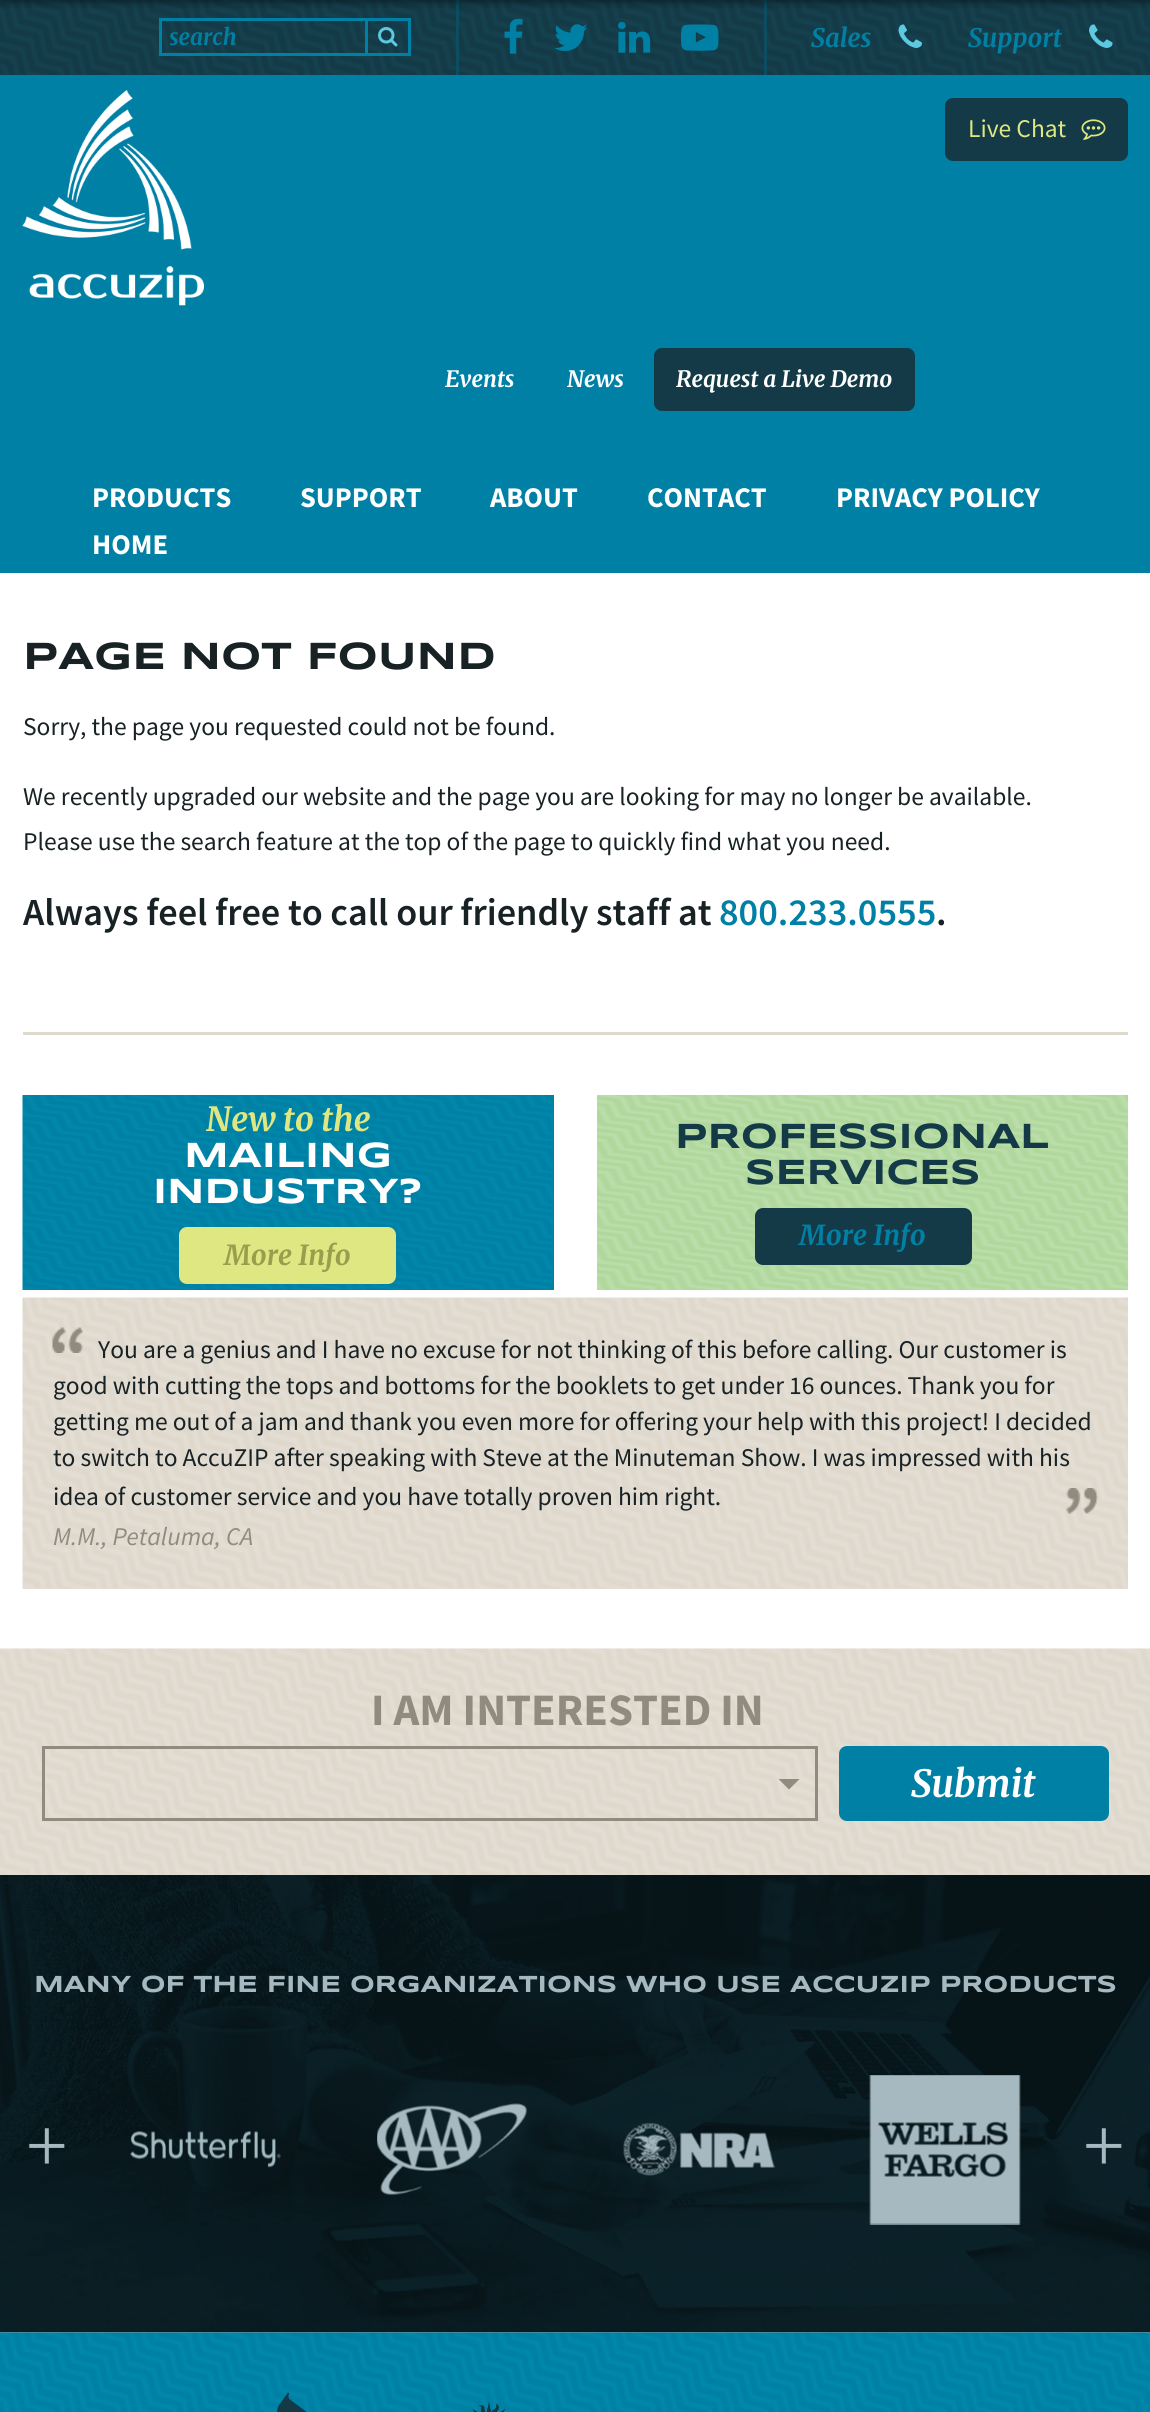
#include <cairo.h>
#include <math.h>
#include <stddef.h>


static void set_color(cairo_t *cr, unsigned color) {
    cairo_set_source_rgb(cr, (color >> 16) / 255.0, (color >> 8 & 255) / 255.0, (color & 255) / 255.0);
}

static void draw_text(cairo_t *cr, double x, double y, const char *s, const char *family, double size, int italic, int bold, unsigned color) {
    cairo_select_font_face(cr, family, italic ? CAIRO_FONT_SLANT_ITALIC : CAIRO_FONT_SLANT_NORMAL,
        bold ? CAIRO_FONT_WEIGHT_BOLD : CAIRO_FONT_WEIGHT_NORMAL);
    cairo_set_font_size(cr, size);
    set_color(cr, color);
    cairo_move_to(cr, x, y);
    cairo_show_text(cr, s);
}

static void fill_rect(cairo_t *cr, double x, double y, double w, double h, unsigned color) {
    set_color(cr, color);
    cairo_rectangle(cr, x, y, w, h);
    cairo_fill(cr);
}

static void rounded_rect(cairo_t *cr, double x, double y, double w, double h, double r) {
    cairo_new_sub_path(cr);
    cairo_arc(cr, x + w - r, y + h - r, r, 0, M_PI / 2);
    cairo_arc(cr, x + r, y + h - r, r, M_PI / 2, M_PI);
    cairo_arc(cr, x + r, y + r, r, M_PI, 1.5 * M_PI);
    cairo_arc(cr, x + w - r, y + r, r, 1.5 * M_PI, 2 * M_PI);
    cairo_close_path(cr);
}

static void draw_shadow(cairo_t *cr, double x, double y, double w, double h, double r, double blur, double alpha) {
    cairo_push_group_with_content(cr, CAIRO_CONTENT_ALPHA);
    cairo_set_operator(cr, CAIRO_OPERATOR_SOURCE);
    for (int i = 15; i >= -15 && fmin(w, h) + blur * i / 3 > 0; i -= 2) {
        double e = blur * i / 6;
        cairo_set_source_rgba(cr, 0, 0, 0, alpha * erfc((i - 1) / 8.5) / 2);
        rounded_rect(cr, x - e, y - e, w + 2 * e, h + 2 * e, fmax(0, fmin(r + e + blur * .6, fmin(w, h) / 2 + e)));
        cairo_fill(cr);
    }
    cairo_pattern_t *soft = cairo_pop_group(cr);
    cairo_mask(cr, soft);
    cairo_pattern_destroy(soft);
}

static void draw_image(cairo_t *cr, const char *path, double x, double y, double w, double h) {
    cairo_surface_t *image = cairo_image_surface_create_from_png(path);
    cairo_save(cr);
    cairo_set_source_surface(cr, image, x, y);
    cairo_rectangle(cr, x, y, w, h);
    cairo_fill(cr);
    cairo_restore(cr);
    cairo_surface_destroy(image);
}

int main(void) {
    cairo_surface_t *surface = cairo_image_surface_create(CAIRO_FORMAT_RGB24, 1150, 2412);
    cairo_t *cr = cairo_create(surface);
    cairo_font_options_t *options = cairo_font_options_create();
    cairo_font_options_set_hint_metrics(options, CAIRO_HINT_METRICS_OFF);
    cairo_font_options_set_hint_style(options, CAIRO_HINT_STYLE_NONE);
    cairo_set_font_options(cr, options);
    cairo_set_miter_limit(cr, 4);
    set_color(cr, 0xFFFFFF);
    cairo_paint(cr);
    draw_image(cr, "assets/img1.png", 0, 0, 1150, 75);
    fill_rect(cr, 456, 0, 3, 75, 0x0C4D61);
    fill_rect(cr, 764, 0, 3, 75, 0x0C4D61);
    set_color(cr, 0x000000);
    draw_shadow(cr, 0, -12, 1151, 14, 0, 4, 0.5);
    fill_rect(cr, 0, 75, 1150, 498, 0x0080A5);
    cairo_rectangle(cr, 160.5, 19.5, 206, 35);
    cairo_set_line_width(cr, 3);
    cairo_stroke(cr);
    cairo_save(cr);
    cairo_rectangle(cr, 170, 23, 187, 28);
    cairo_clip(cr);
    draw_text(cr, 169, 45, "search", "Merriweather Light", 22.5, 1, 0, 0x0080A5);
    cairo_restore(cr);
    fill_rect(cr, 368, 18, 43, 3, 0x0080A5);
    fill_rect(cr, 408, 18, 3, 38, 0x0080A5);
    fill_rect(cr, 368, 53, 43, 3, 0x0080A5);
    draw_image(cr, "assets/img2.png", 378, 27, 20, 20);
    draw_image(cr, "assets/img3.png", 504, 18, 19, 36);
    draw_image(cr, "assets/img4.png", 554, 24, 34, 27);
    draw_image(cr, "assets/img5.png", 618, 22, 33, 31);
    draw_image(cr, "assets/img6.png", 681, 24, 38, 27);
    draw_text(cr, 811, 47, "Sales", "Merriweather Light", 25.5, 1, 0, 0x0080A5);
    draw_image(cr, "assets/img7.png", 898, 24, 24, 24);
    draw_text(cr, 968, 47, "Support", "Merriweather Light", 25.5, 1, 0, 0x0080A5);
    draw_image(cr, "assets/img8.png", 1089, 24, 24, 24);
    draw_image(cr, "assets/img9.png", 22, 90, 182, 216);
    set_color(cr, 0x133A46);
    rounded_rect(cr, 945, 98, 183, 63, 8);
    cairo_fill(cr);
    draw_text(cr, 968, 137, "Live Chat", "Source Sans Pro", 25.5, 0, 0, 0xDEE781);
    draw_image(cr, "assets/img10.png", 1081, 119, 25, 21);
    draw_text(cr, 445, 387, "Events", "Merriweather Light", 22.5, 1, 0, 0xFFFFFF);
    draw_text(cr, 567, 387, "News", "Merriweather Light", 22.5, 1, 0, 0xFFFFFF);
    set_color(cr, 0x133A46);
    rounded_rect(cr, 654, 348, 261, 63, 8);
    cairo_fill(cr);
    draw_text(cr, 676, 387, "Request a Live Demo", "Merriweather Light", 22.5, 1, 0, 0xFFFFFF);
    draw_text(cr, 92, 507, "PRODUCTS", "Source Sans Pro", 28.5, 0, 1, 0xFFFFFF);
    draw_text(cr, 300, 507, "SUPPORT", "Source Sans Pro", 28.5, 0, 1, 0xFFFFFF);
    draw_text(cr, 490, 507, "ABOUT", "Source Sans Pro", 28.5, 0, 1, 0xFFFFFF);
    draw_text(cr, 647, 507, "CONTACT", "Source Sans Pro", 28.5, 0, 1, 0xFFFFFF);
    draw_text(cr, 836, 507, "PRIVACY POLICY", "Source Sans Pro", 28.5, 0, 1, 0xFFFFFF);
    draw_text(cr, 92, 554, "HOME", "Source Sans Pro", 28.5, 0, 1, 0xFFFFFF);
    draw_text(cr, 23, 669, "PAGE NOT FOUND", "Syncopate", 39, 0, 1, 0x182225);
    draw_text(cr, 23, 735, "Sorry, the page you requested could not be found.", "Source Sans Pro", 25.5, 0, 0, 0x182225);
    draw_text(cr, 23, 805, "We recently upgraded our website and the page you are looking for may no longer be available.", "Source Sans Pro", 25.5, 0, 0, 0x182225);
    draw_text(cr, 23, 850, "Please use the search feature at the top of the page to quickly find what you need.", "Source Sans Pro", 25.5, 0, 0, 0x182225);
    draw_text(cr, 23, 925, "Always feel free to call our friendly staff at", "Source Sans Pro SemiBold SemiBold", 38.25, 0, 0, 0x182225);
    draw_text(cr, 719, 925, "800.233.0555", "Source Sans Pro SemiBold SemiBold", 38.25, 0, 0, 0x0080A5);
    draw_text(cr, 936, 925, ".", "Source Sans Pro SemiBold SemiBold", 38.25, 0, 0, 0x182225);
    fill_rect(cr, 23, 1032, 1105, 3, 0xDFD8CC);
    fill_rect(cr, 553, 1095, 1, 195, 0x0080A5);
    draw_image(cr, "assets/img11.png", 22, 1095, 531, 195);
    draw_text(cr, 206, 1131, "New to the", "Merriweather Light", 33.25, 1, 0, 0xDEE781);
    draw_text(cr, 184, 1167, "MAILING", "Syncopate", 36, 0, 1, 0xFFFFFF);
    draw_text(cr, 153, 1203, "INDUSTRY?", "Syncopate", 36, 0, 1, 0xFFFFFF);
    set_color(cr, 0xDEE781);
    rounded_rect(cr, 179, 1227, 217, 57, 8);
    cairo_fill(cr);
    draw_text(cr, 224, 1265, "More Info", "Merriweather Light", 27.5, 1, 0, 0x979E4D);
    draw_image(cr, "assets/img12.png", 597, 1095, 531, 195);
    draw_text(cr, 675, 1148, "PROFESSIONAL", "Syncopate", 36, 0, 1, 0x133A46);
    draw_text(cr, 745, 1184, "SERVICES", "Syncopate", 36, 0, 1, 0x133A46);
    rounded_rect(cr, 755, 1208, 217, 57, 8);
    cairo_fill(cr);
    draw_text(cr, 799, 1245, "More Info", "Merriweather Light", 27.5, 1, 0, 0x0080A5);
    fill_rect(cr, 23, 1588, 1105, 1, 0xE3DDD3);
    draw_image(cr, "assets/img13.png", 22, 1297, 1106, 292);
    draw_image(cr, "assets/img14.png", 52, 1327, 31, 26);
    draw_image(cr, "assets/img15.png", 1066, 1488, 32, 26);
    draw_text(cr, 98, 1358, "You are a genius and I have no excuse for not thinking of this before calling. Our customer is", "Source Sans Pro", 25.5, 0, 0, 0x182225);
    draw_text(cr, 53, 1394, "good with cutting the tops and bottoms for the booklets to get under 16 ounces. Thank you for", "Source Sans Pro", 25.5, 0, 0, 0x182225);
    draw_text(cr, 53, 1430, "getting me out of a jam and thank you even more for offering your help with this project! I decided", "Source Sans Pro", 25.5, 0, 0, 0x182225);
    draw_text(cr, 53, 1466, "to switch to AccuZIP after speaking with Steve at the Minuteman Show. I was impressed with his", "Source Sans Pro", 25.5, 0, 0, 0x182225);
    draw_text(cr, 53, 1505, "idea of customer service and you have totally proven him right.", "Source Sans Pro", 25.5, 0, 0, 0x182225);
    draw_text(cr, 53, 1545, "M.M., Petaluma, CA", "Source Sans Pro", 25.5, 1, 0, 0x918A7F);
    draw_image(cr, "assets/img16.png", 0, 1648, 1150, 227);
    draw_text(cr, 371, 1725, "I AM INTERESTED IN", "Source Sans Pro", 45, 0, 1, 0x918A7F);
    cairo_rectangle(cr, 43.5, 1747.5, 773, 72);
    cairo_stroke(cr);
    cairo_new_path(cr);
    cairo_move_to(cr, 778.5, 1779);
    cairo_line_to(cr, 799.5, 1779);
    cairo_line_to(cr, 789, 1789.5);
    cairo_close_path(cr);
    cairo_fill(cr);
    set_color(cr, 0x0080A5);
    rounded_rect(cr, 839, 1746, 270, 75, 8);
    cairo_fill(cr);
    draw_text(cr, 911, 1797, "Submit", "Merriweather Light", 37.5, 1, 0, 0xFFFFFF);
    draw_image(cr, "assets/img17.png", 0, 1875, 1150, 458);
    draw_text(cr, 34, 1992, "MANY OF THE FINE ORGANIZATIONS WHO USE ACCUZIP PRODUCTS", "Syncopate", 24, 0, 1, 0xA6B9C0);
    draw_image(cr, "assets/img18.png", 130, 2131, 151, 37);
    draw_image(cr, "assets/img19.png", 377, 2103, 150, 92);
    draw_image(cr, "assets/img20.png", 623, 2122, 152, 54);
    draw_image(cr, "assets/img21.png", 869, 2075, 152, 150);
    draw_text(cr, 23, 2171, "+", "Syncopate", 75, 0, 0, 0xA6B9C0);
    draw_text(cr, 1080, 2171, "+", "Syncopate", 75, 0, 0, 0xA6B9C0);
    draw_image(cr, "assets/img22.png", 0, 2332, 1150, 80);
    draw_image(cr, "assets/img23.png", 277, 2392, 30, 20);
    draw_image(cr, "assets/img24.png", 472, 2402, 34, 10);
    cairo_surface_write_to_png(surface, "output.png");
    cairo_font_options_destroy(options);
    cairo_destroy(cr);
    cairo_surface_destroy(surface);
    return 0;
}
